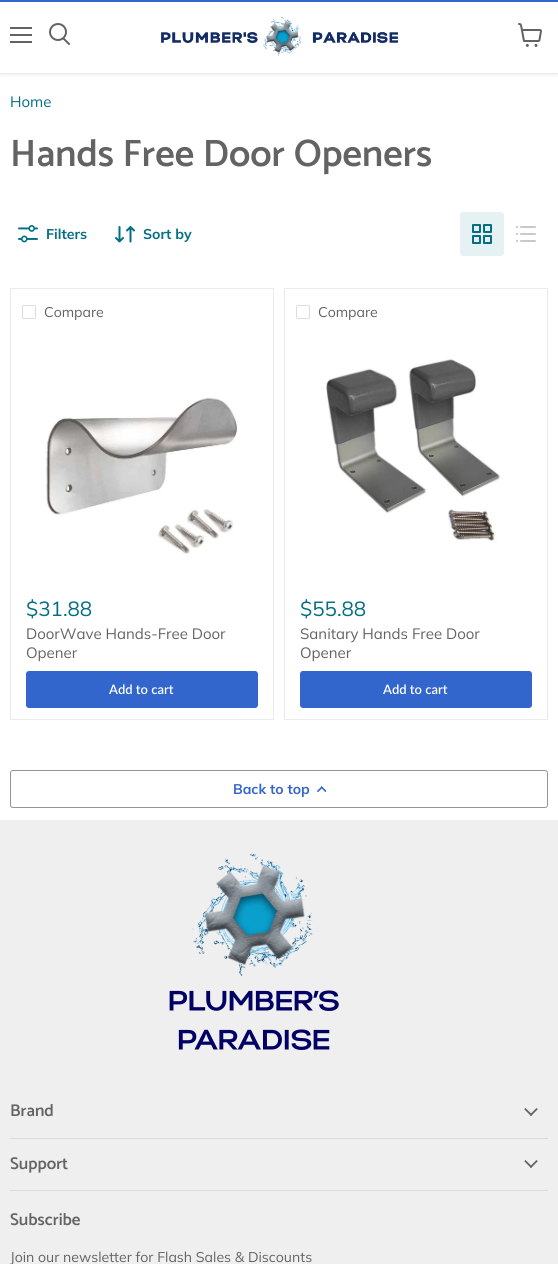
#include <cairo.h>
#include <math.h>
#include <stddef.h>


static void set_color(cairo_t *cr, unsigned color) {
    cairo_set_source_rgb(cr, (color >> 16) / 255.0, (color >> 8 & 255) / 255.0, (color & 255) / 255.0);
}

static void draw_text(cairo_t *cr, double x, double y, const char *s, const char *family, double size, int italic, int bold, unsigned color) {
    cairo_select_font_face(cr, family, italic ? CAIRO_FONT_SLANT_ITALIC : CAIRO_FONT_SLANT_NORMAL,
        bold ? CAIRO_FONT_WEIGHT_BOLD : CAIRO_FONT_WEIGHT_NORMAL);
    cairo_set_font_size(cr, size);
    set_color(cr, color);
    cairo_move_to(cr, x, y);
    cairo_show_text(cr, s);
}

static void fill_rect(cairo_t *cr, double x, double y, double w, double h, unsigned color) {
    set_color(cr, color);
    cairo_rectangle(cr, x, y, w, h);
    cairo_fill(cr);
}

static void rounded_rect(cairo_t *cr, double x, double y, double w, double h, double r) {
    cairo_new_sub_path(cr);
    cairo_arc(cr, x + w - r, y + h - r, r, 0, M_PI / 2);
    cairo_arc(cr, x + r, y + h - r, r, M_PI / 2, M_PI);
    cairo_arc(cr, x + r, y + r, r, M_PI, 1.5 * M_PI);
    cairo_arc(cr, x + w - r, y + r, r, 1.5 * M_PI, 2 * M_PI);
    cairo_close_path(cr);
}

static void draw_shadow(cairo_t *cr, double x, double y, double w, double h, double r, double blur, double alpha) {
    cairo_push_group_with_content(cr, CAIRO_CONTENT_ALPHA);
    cairo_set_operator(cr, CAIRO_OPERATOR_SOURCE);
    for (int i = 15; i >= -15 && fmin(w, h) + blur * i / 3 > 0; i -= 2) {
        double e = blur * i / 6;
        cairo_set_source_rgba(cr, 0, 0, 0, alpha * erfc((i - 1) / 8.5) / 2);
        rounded_rect(cr, x - e, y - e, w + 2 * e, h + 2 * e, fmax(0, fmin(r + e + blur * .6, fmin(w, h) / 2 + e)));
        cairo_fill(cr);
    }
    cairo_pattern_t *soft = cairo_pop_group(cr);
    cairo_mask(cr, soft);
    cairo_pattern_destroy(soft);
}

static void draw_image(cairo_t *cr, const char *path, double x, double y, double w, double h) {
    cairo_surface_t *image = cairo_image_surface_create_from_png(path);
    cairo_save(cr);
    cairo_set_source_surface(cr, image, x, y);
    cairo_rectangle(cr, x, y, w, h);
    cairo_fill(cr);
    cairo_restore(cr);
    cairo_surface_destroy(image);
}

int main(void) {
    cairo_surface_t *surface = cairo_image_surface_create(CAIRO_FORMAT_RGB24, 558, 1264);
    cairo_t *cr = cairo_create(surface);
    cairo_font_options_t *options = cairo_font_options_create();
    cairo_font_options_set_hint_metrics(options, CAIRO_HINT_METRICS_OFF);
    cairo_font_options_set_hint_style(options, CAIRO_HINT_STYLE_NONE);
    cairo_set_font_options(cr, options);
    cairo_set_miter_limit(cr, 4);
    set_color(cr, 0xFFFFFF);
    cairo_paint(cr);
    cairo_save(cr);
    cairo_rectangle(cr, 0, 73, 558, 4);
    cairo_clip(cr);
    set_color(cr, 0x808080);
    draw_shadow(cr, 0, 3, 558, 71, 0, 2, 0.25);
    cairo_restore(cr);
    fill_rect(cr, 10, 27, 22, 2, 0x646363);
    fill_rect(cr, 10, 34, 22, 2, 0x646363);
    fill_rect(cr, 10, 41, 22, 2, 0x646363);
    cairo_new_path(cr);
    cairo_move_to(cr, 69, 44);
    cairo_line_to(cr, 63.5, 38.5);
    cairo_set_line_cap(cr, CAIRO_LINE_CAP_ROUND);
    cairo_stroke(cr);
    cairo_arc(cr, 58, 32, 8, 0, 2 * M_PI);
    cairo_set_line_cap(cr, CAIRO_LINE_CAP_BUTT);
    cairo_stroke(cr);
    draw_image(cr, "assets/img1.png", 161, 17, 237, 40);
    draw_image(cr, "assets/img2.png", 518, 23, 24, 24);
    fill_rect(cr, 0, 0, 558, 2, 0x3366CC);
    draw_text(cr, 10, 107, "Home", "Muli", 15, 0, 0, 0x046E82);
    draw_text(cr, 10, 166, "Hands Free Door Openers", "Catamaran SemiBold", 38.25, 0, 0, 0x646363);
    draw_image(cr, "assets/img3.png", 18, 225, 20, 18);
    draw_text(cr, 46, 239, "Filters", "Muli", 14.1, 0, 1, 0x046E82);
    draw_image(cr, "assets/img4.png", 115, 226, 20, 17);
    draw_text(cr, 143, 239, "Sort by", "Muli", 14.1, 0, 1, 0x046E82);
    set_color(cr, 0xE6F1F3);
    rounded_rect(cr, 460, 212, 44, 44, 3);
    cairo_fill(cr);
    draw_image(cr, "assets/img5.png", 472, 224, 20, 20);
    draw_image(cr, "assets/img6.png", 516, 226, 20, 16);
    cairo_rectangle(cr, 10.5, 288.5, 263, 431);
    set_color(cr, 0xEBEBEB);
    cairo_set_line_width(cr, 1);
    cairo_stroke(cr);
    rounded_rect(cr, 22.5, 305.5, 13, 13, 1.5);
    set_color(cr, 0xDDDDDD);
    cairo_stroke(cr);
    draw_text(cr, 44, 317, "Compare", "Muli", 14.1, 0, 0, 0x646363);
    draw_image(cr, "assets/img7.png", 22, 336, 240, 240);
    draw_text(cr, 26, 616, "$31.88", "Muli", 20.5, 0, 0, 0x046E82);
    draw_text(cr, 26, 639, "DoorWave Hands-Free Door", "Muli", 15, 0, 0, 0x646363);
    draw_text(cr, 26, 658, "Opener", "Muli", 15, 0, 0, 0x646363);
    set_color(cr, 0x3366CC);
    rounded_rect(cr, 26.5, 671.5, 231, 36, 2.5);
    cairo_fill_preserve(cr);
    cairo_stroke(cr);
    draw_text(cr, 109, 694, "Add to cart", "Lato SemiBold", 13, 0, 0, 0xFFFFFF);
    cairo_rectangle(cr, 284.5, 288.5, 263, 431);
    set_color(cr, 0xEBEBEB);
    cairo_stroke(cr);
    rounded_rect(cr, 296.5, 305.5, 13, 13, 1.5);
    set_color(cr, 0xDDDDDD);
    cairo_stroke(cr);
    draw_text(cr, 318, 317, "Compare", "Muli", 14.1, 0, 0, 0x646363);
    draw_image(cr, "assets/img8.png", 296, 336, 240, 240);
    draw_text(cr, 300, 616, "$55.88", "Muli", 20.5, 0, 0, 0x046E82);
    draw_text(cr, 300, 639, "Sanitary Hands Free Door", "Muli", 15, 0, 0, 0x646363);
    draw_text(cr, 300, 658, "Opener", "Muli", 15, 0, 0, 0x646363);
    set_color(cr, 0x3366CC);
    rounded_rect(cr, 300.5, 671.5, 231, 36, 2.5);
    cairo_fill_preserve(cr);
    cairo_stroke(cr);
    draw_text(cr, 383, 694, "Add to cart", "Lato SemiBold", 13, 0, 0, 0xFFFFFF);
    rounded_rect(cr, 10.5, 770.5, 537, 37, 2.5);
    set_color(cr, 0x949494);
    cairo_stroke(cr);
    draw_text(cr, 233, 794, "Back to top", "Muli", 14, 0, 1, 0x3366CC);
    draw_image(cr, "assets/img9.png", 317, 786, 9, 7);
    fill_rect(cr, 0, 820, 558, 444, 0xF0EFEF);
    draw_image(cr, "assets/img10.png", 169, 853, 170, 197);
    fill_rect(cr, 10, 1138, 538, 1, 0xDBDADA);
    draw_text(cr, 10, 1116, "Brand", "Catamaran SemiBold", 17, 0, 0, 0x646363);
    draw_image(cr, "assets/img11.png", 524, 1108, 14, 8);
    fill_rect(cr, 10, 1190, 538, 1, 0xDBDADA);
    draw_text(cr, 10, 1169, "Support", "Catamaran SemiBold", 17, 0, 0, 0x646363);
    draw_image(cr, "assets/img11.png", 524, 1160, 14, 8);
    draw_text(cr, 10, 1225, "Subscribe", "Catamaran SemiBold", 17, 0, 0, 0x646363);
    draw_text(cr, 10, 1262, "Join our newsletter for Flash Sales & Discounts", "Muli", 14.1, 0, 0, 0x646363);
    cairo_surface_write_to_png(surface, "output.png");
    cairo_font_options_destroy(options);
    cairo_destroy(cr);
    cairo_surface_destroy(surface);
    return 0;
}
